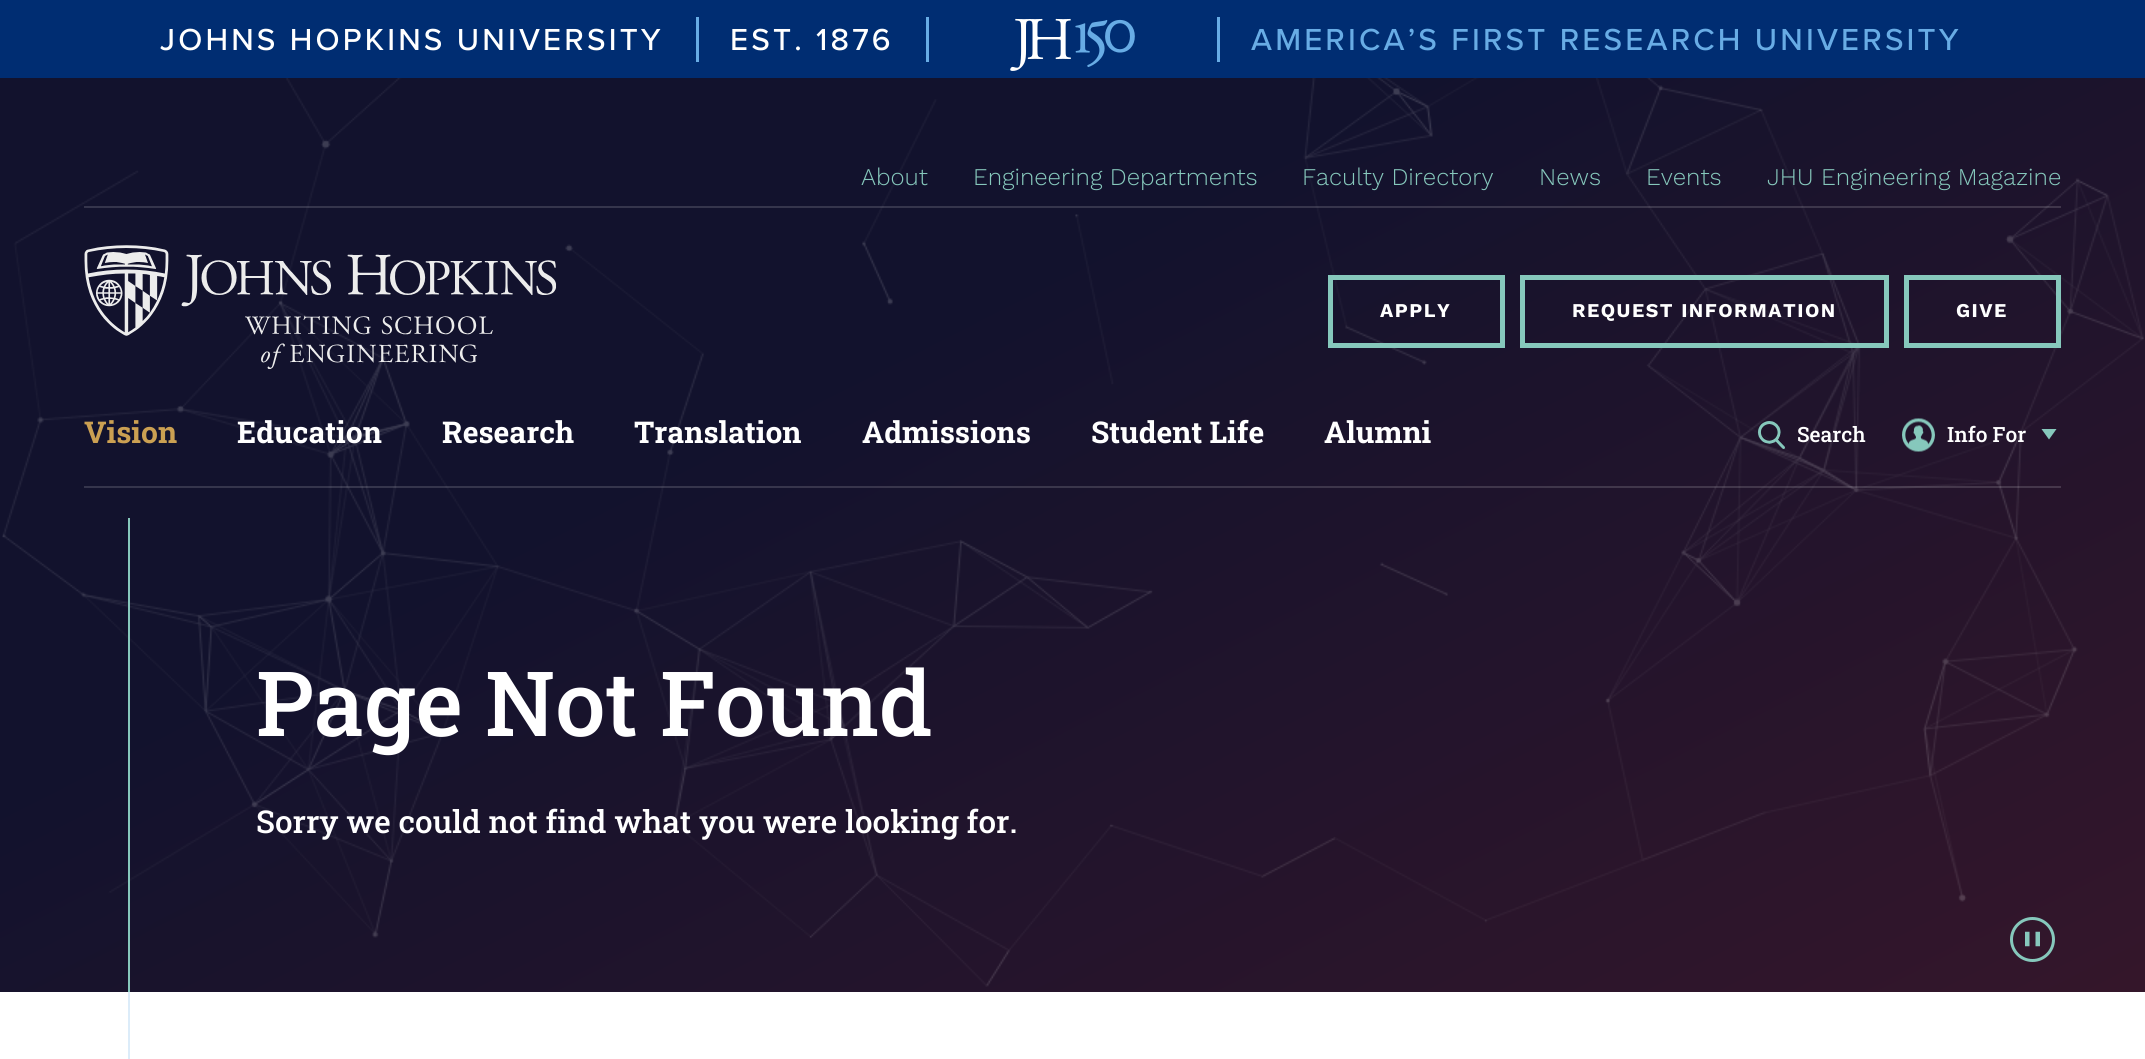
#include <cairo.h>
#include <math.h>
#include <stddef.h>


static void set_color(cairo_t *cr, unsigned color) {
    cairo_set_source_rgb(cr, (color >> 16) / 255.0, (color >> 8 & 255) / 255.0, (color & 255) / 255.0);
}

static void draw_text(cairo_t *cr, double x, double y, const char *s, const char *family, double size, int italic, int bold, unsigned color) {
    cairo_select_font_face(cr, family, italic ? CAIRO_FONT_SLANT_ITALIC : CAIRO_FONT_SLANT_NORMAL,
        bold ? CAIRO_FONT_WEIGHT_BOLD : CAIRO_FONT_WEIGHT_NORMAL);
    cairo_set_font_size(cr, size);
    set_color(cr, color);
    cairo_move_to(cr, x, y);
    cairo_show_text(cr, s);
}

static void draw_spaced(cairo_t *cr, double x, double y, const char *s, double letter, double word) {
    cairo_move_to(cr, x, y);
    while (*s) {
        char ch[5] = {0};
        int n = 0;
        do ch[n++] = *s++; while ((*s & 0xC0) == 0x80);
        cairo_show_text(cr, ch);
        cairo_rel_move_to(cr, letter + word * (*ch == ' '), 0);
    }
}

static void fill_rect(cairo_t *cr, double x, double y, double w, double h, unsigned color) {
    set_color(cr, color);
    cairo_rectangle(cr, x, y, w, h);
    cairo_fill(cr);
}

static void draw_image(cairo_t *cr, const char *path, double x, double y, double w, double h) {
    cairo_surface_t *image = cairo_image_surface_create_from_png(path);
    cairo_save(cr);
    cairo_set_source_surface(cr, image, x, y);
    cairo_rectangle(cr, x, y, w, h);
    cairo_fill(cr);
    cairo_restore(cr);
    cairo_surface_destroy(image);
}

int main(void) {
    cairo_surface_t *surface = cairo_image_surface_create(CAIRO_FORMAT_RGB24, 2145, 1059);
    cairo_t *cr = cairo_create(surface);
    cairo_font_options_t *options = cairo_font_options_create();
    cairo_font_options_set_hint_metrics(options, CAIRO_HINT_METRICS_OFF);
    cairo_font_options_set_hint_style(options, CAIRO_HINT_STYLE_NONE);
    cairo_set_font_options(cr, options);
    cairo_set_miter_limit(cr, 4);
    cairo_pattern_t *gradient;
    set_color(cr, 0xFFFFFF);
    cairo_paint(cr);
    fill_rect(cr, 0, 0, 2145, 78, 0x002D72);
    cairo_select_font_face(cr, "Proxima Nova Medium", CAIRO_FONT_SLANT_NORMAL, CAIRO_FONT_WEIGHT_NORMAL);
    cairo_set_font_size(cr, 31.5);
    set_color(cr, 0xFFFFFF);
    draw_spaced(cr, 160, 50, "JOHNS HOPKINS UNIVERSITY", 3.15, 0);
    fill_rect(cr, 696, 17, 3, 45, 0x68ACE5);
    set_color(cr, 0xFFFFFF);
    draw_spaced(cr, 730, 50, "EST. 1876", 3.15, 0);
    fill_rect(cr, 926, 17, 3, 45, 0x68ACE5);
    draw_image(cr, "assets/img1.png", 1010, 18, 125, 53);
    fill_rect(cr, 1217, 17, 3, 45, 0x68ACE5);
    draw_spaced(cr, 1251, 50, "AMERICA’S FIRST RESEARCH UNIVERSITY", 3.15, 0);
    gradient = cairo_pattern_create_linear(511, -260, 1634, 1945);
    cairo_pattern_add_color_stop_rgba(gradient, 0.29, 0.071, 0.071, 0.176, 1);
    cairo_pattern_add_color_stop_rgba(gradient, 1, 0.278, 0.094, 0.161, 1);
    cairo_pattern_add_color_stop_rgba(gradient, 1, 0.275, 0.094, 0.161, 1);
    cairo_set_source(cr, gradient);
    cairo_pattern_destroy(gradient);
    cairo_rectangle(cr, 0, 78, 2145, 914);
    cairo_fill(cr);
    draw_image(cr, "assets/img2.png", 2, 78, 2142, 909);
    cairo_arc(cr, 2032.5, 939.5, 21, 0, 2 * M_PI);
    set_color(cr, 0x86C8BC);
    cairo_set_line_width(cr, 3);
    cairo_stroke(cr);
    draw_image(cr, "assets/img3.png", 2025, 931, 15, 16);
    cairo_set_source_rgba(cr, 1, 1, 1, 0.15);
    cairo_rectangle(cr, 84, 206, 1977, 2);
    cairo_fill(cr);
    draw_text(cr, 861, 185, "About", "Work Sans Light", 24, 0, 0, 0x86C8BC);
    draw_text(cr, 973, 185, "Engineering Departments", "Work Sans Light", 24, 0, 0, 0x86C8BC);
    draw_text(cr, 1302, 185, "Faculty Directory", "Work Sans Light", 24, 0, 0, 0x86C8BC);
    draw_text(cr, 1539, 185, "News", "Work Sans Light", 24, 0, 0, 0x86C8BC);
    draw_text(cr, 1646, 185, "Events", "Work Sans Light", 24, 0, 0, 0x86C8BC);
    draw_text(cr, 1767, 185, "JHU Engineering Magazine", "Work Sans Light", 24, 0, 0, 0x86C8BC);
    draw_image(cr, "assets/img4.png", 84, 245, 473, 124);
    cairo_rectangle(cr, 1330.5, 277.5, 172, 68);
    cairo_set_line_width(cr, 5);
    cairo_stroke(cr);
    cairo_select_font_face(cr, "Work Sans", CAIRO_FONT_SLANT_NORMAL, CAIRO_FONT_WEIGHT_BOLD);
    cairo_set_font_size(cr, 19.5);
    set_color(cr, 0xFFFFFF);
    draw_spaced(cr, 1380, 317, "APPLY", 1.5, 0);
    cairo_rectangle(cr, 1522.5, 277.5, 364, 68);
    set_color(cr, 0x86C8BC);
    cairo_stroke(cr);
    set_color(cr, 0xFFFFFF);
    draw_spaced(cr, 1572, 317, "REQUEST INFORMATION", 1.5, 0);
    cairo_rectangle(cr, 1906.5, 277.5, 152, 68);
    set_color(cr, 0x86C8BC);
    cairo_stroke(cr);
    set_color(cr, 0xFFFFFF);
    draw_spaced(cr, 1956, 317, "GIVE", 1.5, 0);
    cairo_set_source_rgba(cr, 1, 1, 1, 0.15);
    cairo_rectangle(cr, 84, 486, 1977, 2);
    cairo_fill(cr);
    draw_text(cr, 84, 443, "Vision", "Roboto Slab", 30, 0, 1, 0xCBA052);
    draw_text(cr, 237, 443, "Education", "Roboto Slab", 30, 0, 1, 0xFFFFFF);
    draw_text(cr, 442, 443, "Research", "Roboto Slab", 30, 0, 1, 0xFFFFFF);
    draw_text(cr, 634, 443, "Translation", "Roboto Slab", 30, 0, 1, 0xFFFFFF);
    draw_text(cr, 862, 443, "Admissions", "Roboto Slab", 30, 0, 1, 0xFFFFFF);
    draw_text(cr, 1091, 443, "Student Life", "Roboto Slab", 30, 0, 1, 0xFFFFFF);
    draw_text(cr, 1324, 443, "Alumni", "Roboto Slab", 30, 0, 1, 0xFFFFFF);
    draw_image(cr, "assets/img5.png", 1758, 421, 27, 28);
    draw_text(cr, 1797, 442, "Search", "Roboto Slab Medium", 21, 0, 0, 0xFFFFFF);
    draw_image(cr, "assets/img6.png", 1902, 418, 33, 34);
    draw_text(cr, 1947, 442, "Info For", "Roboto Slab Medium", 21, 0, 0, 0xFFFFFF);
    set_color(cr, 0x86C8BC);
    cairo_new_path(cr);
    cairo_move_to(cr, 2041.5, 429);
    cairo_line_to(cr, 2056.5, 429);
    cairo_line_to(cr, 2049, 439.5);
    cairo_close_path(cr);
    cairo_fill(cr);
    fill_rect(cr, 128, 518, 2, 474, 0x86C8BC);
    draw_text(cr, 256, 736, "Page Not Found", "Roboto Slab Medium", 90, 0, 0, 0xFFFFFF);
    draw_text(cr, 256, 833, "Sorry we could not find what you were looking for.", "Roboto Slab Medium", 31.5, 0, 0, 0xFFFFFF);
    fill_rect(cr, 128, 992, 2, 67, 0xDCECF9);
    cairo_surface_write_to_png(surface, "output.png");
    cairo_font_options_destroy(options);
    cairo_destroy(cr);
    cairo_surface_destroy(surface);
    return 0;
}
